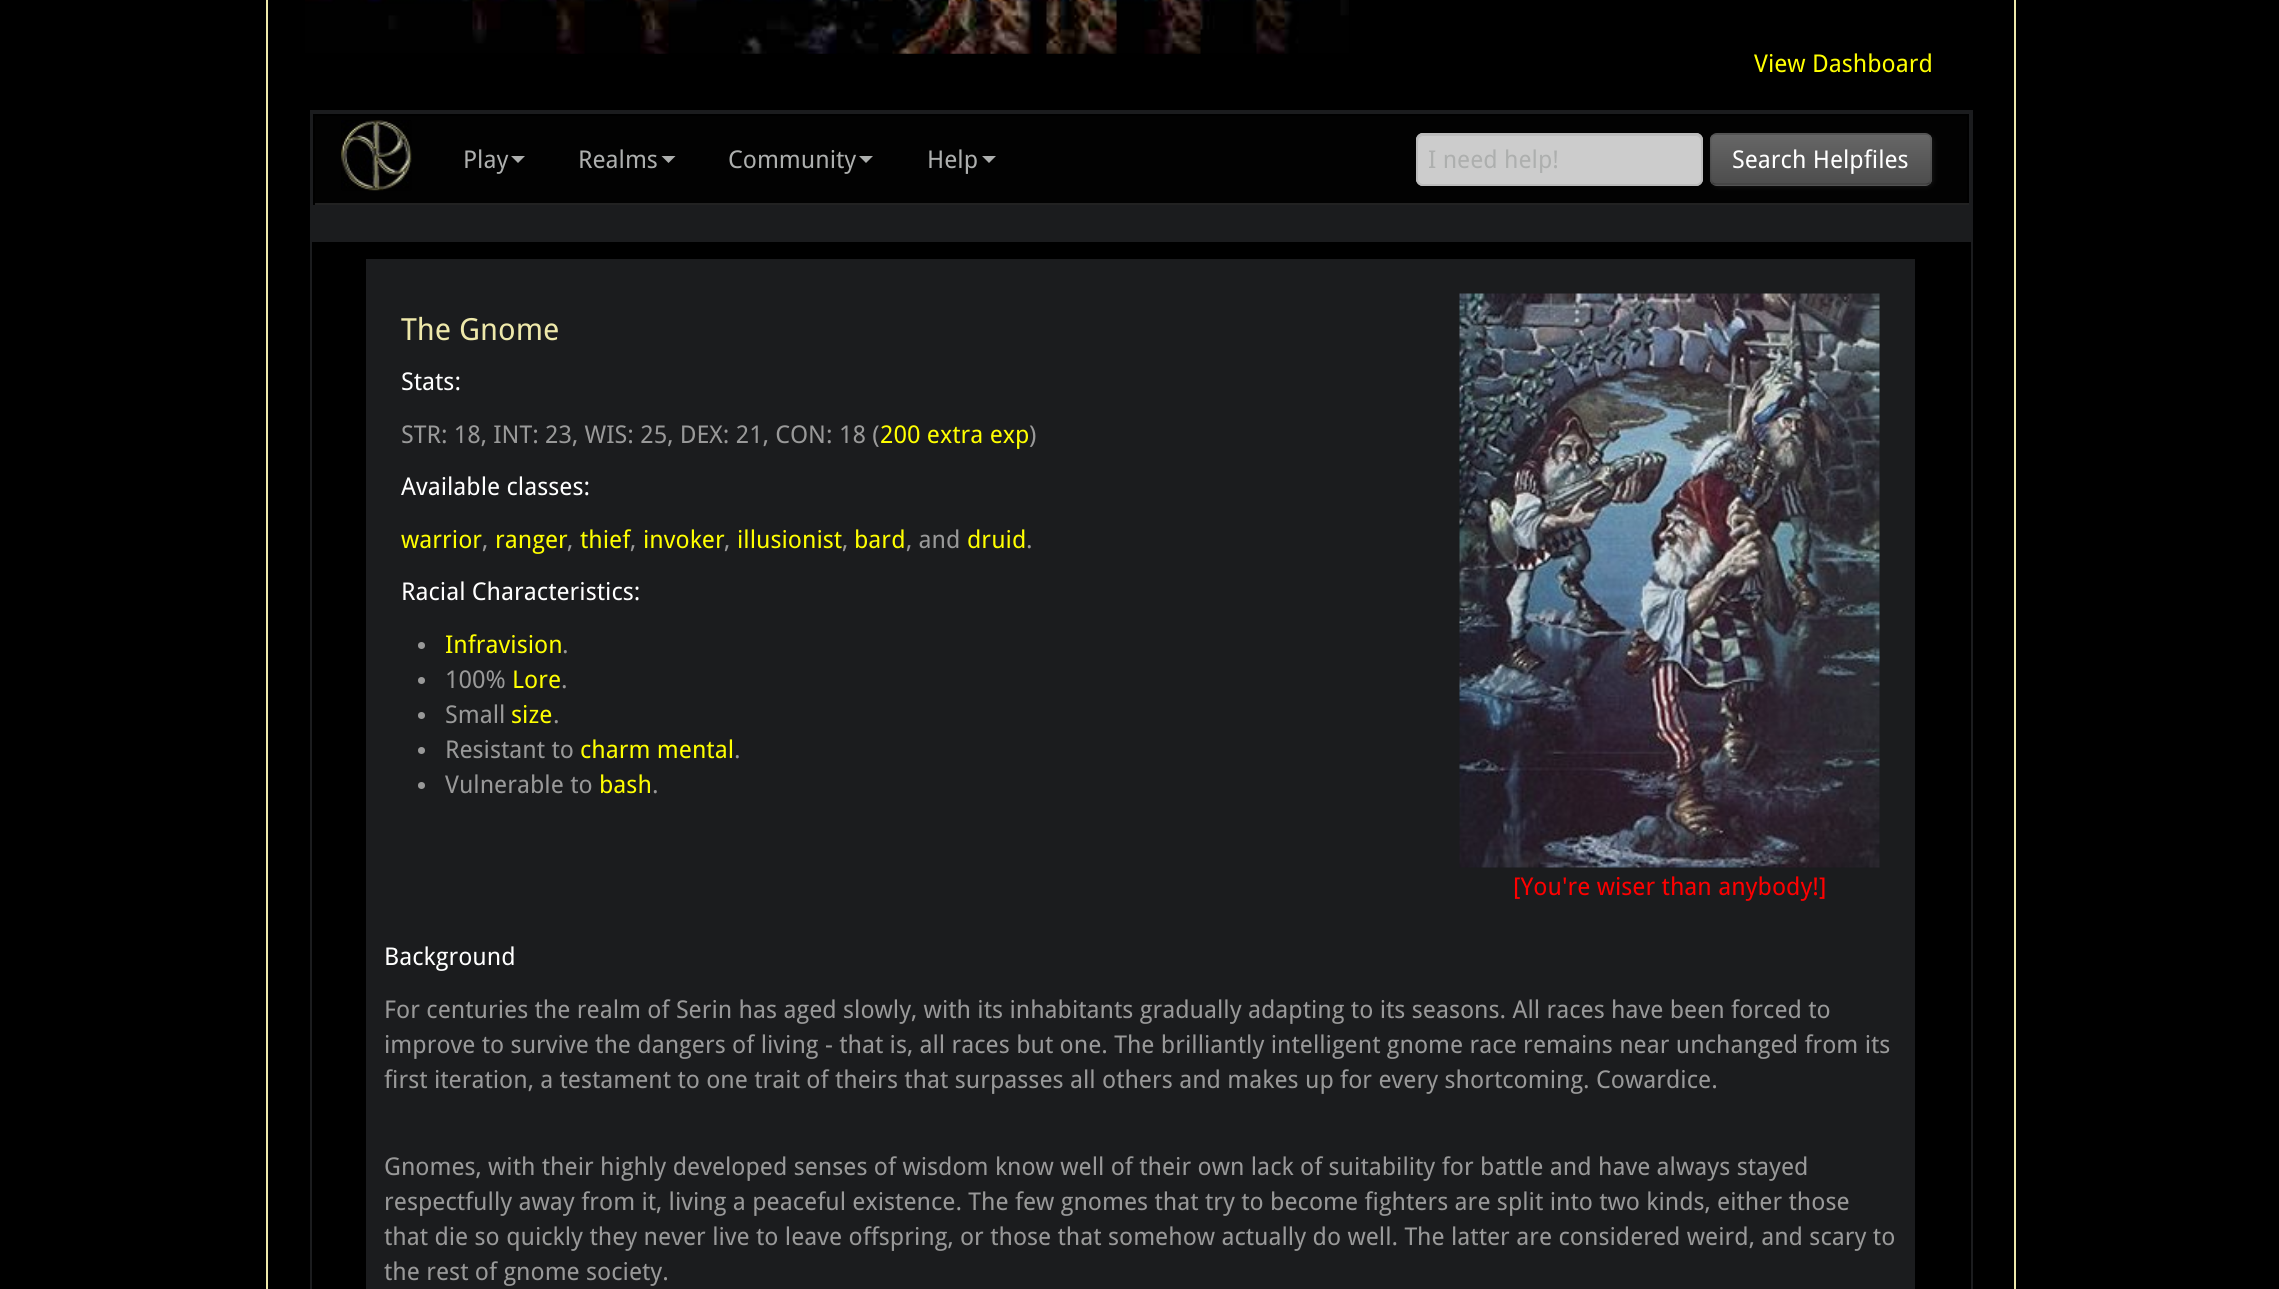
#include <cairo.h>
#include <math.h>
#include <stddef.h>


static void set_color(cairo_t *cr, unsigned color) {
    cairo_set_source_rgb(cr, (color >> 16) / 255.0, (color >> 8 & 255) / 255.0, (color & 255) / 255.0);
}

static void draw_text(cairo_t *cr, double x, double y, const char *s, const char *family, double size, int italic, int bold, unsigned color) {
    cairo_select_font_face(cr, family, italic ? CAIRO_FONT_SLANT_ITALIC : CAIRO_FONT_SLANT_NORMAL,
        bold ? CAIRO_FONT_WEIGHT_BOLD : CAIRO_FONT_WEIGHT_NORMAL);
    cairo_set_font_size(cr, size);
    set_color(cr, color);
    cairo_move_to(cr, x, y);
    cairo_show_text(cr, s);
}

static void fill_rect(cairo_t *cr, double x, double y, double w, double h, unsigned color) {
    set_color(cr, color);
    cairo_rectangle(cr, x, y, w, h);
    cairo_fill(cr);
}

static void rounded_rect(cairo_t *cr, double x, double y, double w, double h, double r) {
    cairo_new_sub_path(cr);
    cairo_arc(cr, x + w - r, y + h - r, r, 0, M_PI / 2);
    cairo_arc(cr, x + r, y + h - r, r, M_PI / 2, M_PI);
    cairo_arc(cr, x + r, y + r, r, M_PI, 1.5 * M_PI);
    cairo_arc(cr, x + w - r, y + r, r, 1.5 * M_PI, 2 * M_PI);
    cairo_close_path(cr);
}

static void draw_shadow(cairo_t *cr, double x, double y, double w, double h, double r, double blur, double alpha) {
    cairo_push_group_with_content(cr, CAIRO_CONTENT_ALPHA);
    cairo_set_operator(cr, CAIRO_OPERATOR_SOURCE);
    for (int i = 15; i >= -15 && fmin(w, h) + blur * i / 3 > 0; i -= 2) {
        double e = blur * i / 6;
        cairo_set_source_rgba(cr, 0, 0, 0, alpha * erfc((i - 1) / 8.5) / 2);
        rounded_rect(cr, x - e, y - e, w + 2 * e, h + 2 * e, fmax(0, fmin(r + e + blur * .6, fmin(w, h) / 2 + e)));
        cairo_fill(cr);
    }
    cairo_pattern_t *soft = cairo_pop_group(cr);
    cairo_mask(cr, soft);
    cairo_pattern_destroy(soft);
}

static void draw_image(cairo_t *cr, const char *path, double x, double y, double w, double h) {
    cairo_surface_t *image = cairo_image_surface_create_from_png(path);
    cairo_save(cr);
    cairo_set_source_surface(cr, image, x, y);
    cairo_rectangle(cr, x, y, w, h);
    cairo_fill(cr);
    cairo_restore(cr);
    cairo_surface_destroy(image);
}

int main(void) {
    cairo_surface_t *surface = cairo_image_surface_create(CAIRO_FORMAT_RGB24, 2279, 1289);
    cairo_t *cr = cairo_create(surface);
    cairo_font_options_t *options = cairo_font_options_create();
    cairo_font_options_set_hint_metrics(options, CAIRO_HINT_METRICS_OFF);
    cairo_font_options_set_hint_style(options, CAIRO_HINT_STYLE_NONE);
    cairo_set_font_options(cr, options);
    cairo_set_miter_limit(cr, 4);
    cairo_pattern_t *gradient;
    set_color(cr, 0x000000);
    cairo_paint(cr);
    fill_rect(cr, 2014, 0, 2, 1289, 0xEEE8AA);
    fill_rect(cr, 266, 0, 2, 1289, 0xEEE8AA);
    draw_image(cr, "assets/img1.png", 305, 0, 1044, 54);
    draw_text(cr, 1754, 72, "View Dashboard", "Droid Sans", 24.5, 0, 0, 0xFFFF00);
    fill_rect(cr, 310, 110, 1662, 2, 0x1B1C1E);
    fill_rect(cr, 1971, 110, 2, 1179, 0x1B1C1E);
    fill_rect(cr, 310, 110, 2, 1179, 0x1B1C1E);
    fill_rect(cr, 312, 112, 1659, 130, 0x1B1C1E);
    fill_rect(cr, 315, 116, 1652, 87, 0x020202);
    fill_rect(cr, 313, 114, 1656, 2, 0x000000);
    fill_rect(cr, 1967, 114, 2, 91, 0x000000);
    fill_rect(cr, 313, 203, 1656, 2, 0x222222);
    fill_rect(cr, 313, 114, 2, 91, 0x000000);
    draw_image(cr, "assets/img2.png", 341, 120, 71, 71);
    draw_text(cr, 463, 168, "Play", "Droid Sans", 24.5, 0, 0, 0xADAFAE);
    cairo_new_path(cr);
    cairo_move_to(cr, 511, 156);
    cairo_line_to(cr, 525, 156);
    cairo_line_to(cr, 518, 163);
    cairo_close_path(cr);
    cairo_fill(cr);
    draw_text(cr, 578, 168, "Realms", "Droid Sans", 24.5, 0, 0, 0xADAFAE);
    cairo_new_path(cr);
    cairo_move_to(cr, 661.5, 156);
    cairo_line_to(cr, 675.5, 156);
    cairo_line_to(cr, 668.5, 163);
    cairo_close_path(cr);
    cairo_fill(cr);
    draw_text(cr, 728, 168, "Community", "Droid Sans", 24.5, 0, 0, 0xADAFAE);
    cairo_new_path(cr);
    cairo_move_to(cr, 859, 156);
    cairo_line_to(cr, 873, 156);
    cairo_line_to(cr, 866, 163);
    cairo_close_path(cr);
    cairo_fill(cr);
    draw_text(cr, 927, 168, "Help", "Droid Sans", 24.5, 0, 0, 0xADAFAE);
    cairo_new_path(cr);
    cairo_move_to(cr, 982, 156);
    cairo_line_to(cr, 996, 156);
    cairo_line_to(cr, 989, 163);
    cairo_close_path(cr);
    cairo_fill(cr);
    set_color(cr, 0xCCCCCC);
    rounded_rect(cr, 1416, 133, 287, 53, 7);
    cairo_fill(cr);
    set_color(cr, 0xBDBDBD);
    cairo_new_path(cr);
    cairo_move_to(cr, 1423, 136);
    cairo_line_to(cr, 1696, 136);
    cairo_curve_to(cr, 1699, 136, 1701, 139, 1701, 142);
    cairo_line_to(cr, 1701, 140);
    cairo_curve_to(cr, 1701, 137, 1699, 135, 1696, 135);
    cairo_line_to(cr, 1423, 135);
    cairo_curve_to(cr, 1420, 135, 1418, 137, 1418, 140);
    cairo_line_to(cr, 1418, 142);
    cairo_curve_to(cr, 1418, 139, 1420, 136, 1423, 136);
    cairo_close_path(cr);
    cairo_fill(cr);
    rounded_rect(cr, 1417, 134, 285, 51, 6);
    set_color(cr, 0xBBBBBB);
    cairo_stroke(cr);
    cairo_save(cr);
    cairo_rectangle(cr, 1428, 145, 263, 28);
    cairo_clip(cr);
    draw_text(cr, 1428, 168, "I need help!", "Droid Sans", 24.5, 0, 0, 0xADAFAE);
    cairo_restore(cr);
    set_color(cr, 0x111111);
    draw_shadow(cr, 1712, 135, 222, 52, 7, 2, 1);
    set_color(cr, 0x5C5C5C);
    rounded_rect(cr, 1710, 133, 222, 53, 7);
    cairo_fill(cr);
    cairo_save(cr);
    rounded_rect(cr, 1710, 133, 222, 53, 7);
    cairo_clip(cr);
    gradient = cairo_pattern_create_linear(1821, 135, 1821, 184);
    cairo_pattern_add_color_stop_rgba(gradient, 0, 0.4, 0.4, 0.4, 1);
    cairo_pattern_add_color_stop_rgba(gradient, 1, 0.302, 0.302, 0.302, 1);
    cairo_set_source(cr, gradient);
    cairo_pattern_destroy(gradient);
    cairo_rectangle(cr, 1710, 135, 222, 49);
    cairo_fill(cr);
    cairo_restore(cr);
    cairo_new_path(cr);
    cairo_move_to(cr, 1929.5, 183);
    cairo_curve_to(cr, 1928, 184, 1926.5, 184.5, 1925, 184.5);
    cairo_line_to(cr, 1717, 184.5);
    cairo_curve_to(cr, 1715, 184.5, 1713.5, 184, 1712.5, 183);
    cairo_set_source_rgba(cr, 0, 0, 0, 0.25);
    cairo_set_line_width(cr, 1.8);
    cairo_stroke(cr);
    cairo_new_path(cr);
    cairo_move_to(cr, 1712.5, 183);
    cairo_curve_to(cr, 1711.5, 181.5, 1710.5, 180, 1710.5, 178.5);
    cairo_line_to(cr, 1710.5, 140);
    cairo_curve_to(cr, 1710.5, 138.5, 1711.5, 137, 1712.5, 135.5);
    cairo_curve_to(cr, 1713.5, 134.5, 1715, 134, 1717, 134);
    cairo_line_to(cr, 1925, 134);
    cairo_curve_to(cr, 1926.5, 134, 1928, 134.5, 1929.5, 135.5);
    cairo_curve_to(cr, 1930.5, 137, 1931, 138.5, 1931, 140);
    cairo_line_to(cr, 1931, 178.5);
    cairo_curve_to(cr, 1931, 180, 1930.5, 181.5, 1929.5, 183);
    cairo_set_source_rgba(cr, 0, 0, 0, 0.1);
    cairo_stroke(cr);
    draw_text(cr, 1732, 168, "Search Helpfiles", "Droid Sans", 24.5, 0, 0, 0xFFFFFF);
    fill_rect(cr, 366, 259, 1549, 1030, 0x1B1C1E);
    draw_text(cr, 401, 340, "The Gnome", "Droid Sans", 30.5, 0, 0, 0xEEE8AA);
    draw_text(cr, 401, 390, "Stats:", "Droid Sans", 24.5, 0, 0, 0xFFFFFF);
    draw_text(cr, 401, 443, "STR: 18, INT: 23, WIS: 25, DEX: 21, CON: 18 (", "Droid Sans", 24.5, 0, 0, 0x999999);
    draw_text(cr, 880, 443, "200 extra exp", "Droid Sans", 24.5, 0, 0, 0xFFFF00);
    draw_text(cr, 1029, 443, ")", "Droid Sans", 24.5, 0, 0, 0x999999);
    draw_text(cr, 401, 495, "Available classes:", "Droid Sans", 24.5, 0, 0, 0xFFFFFF);
    draw_text(cr, 401, 548, "warrior", "Droid Sans", 24.5, 0, 0, 0xFFFF00);
    draw_text(cr, 482, 548, ",", "Droid Sans", 24.5, 0, 0, 0x999999);
    draw_text(cr, 495, 548, "ranger", "Droid Sans", 24.5, 0, 0, 0xFFFF00);
    draw_text(cr, 567, 548, ",", "Droid Sans", 24.5, 0, 0, 0x999999);
    draw_text(cr, 580, 548, "thief", "Droid Sans", 24.5, 0, 0, 0xFFFF00);
    draw_text(cr, 630, 548, ",", "Droid Sans", 24.5, 0, 0, 0x999999);
    draw_text(cr, 643, 548, "invoker", "Droid Sans", 24.5, 0, 0, 0xFFFF00);
    draw_text(cr, 724, 548, ",", "Droid Sans", 24.5, 0, 0, 0x999999);
    draw_text(cr, 737, 548, "illusionist", "Droid Sans", 24.5, 0, 0, 0xFFFF00);
    draw_text(cr, 842, 548, ",", "Droid Sans", 24.5, 0, 0, 0x999999);
    draw_text(cr, 854, 548, "bard", "Droid Sans", 24.5, 0, 0, 0xFFFF00);
    draw_text(cr, 906, 548, ", and", "Droid Sans", 24.5, 0, 0, 0x999999);
    draw_text(cr, 967, 548, "druid", "Droid Sans", 24.5, 0, 0, 0xFFFF00);
    draw_text(cr, 1026, 548, ".", "Droid Sans", 24.5, 0, 0, 0x999999);
    draw_text(cr, 401, 600, "Racial Characteristics:", "Droid Sans", 24.5, 0, 0, 0xFFFFFF);
    set_color(cr, 0x999999);
    cairo_new_path(cr);
    cairo_arc(cr, 421.5, 645.5, 3.5, 0, 2 * M_PI);
    cairo_fill(cr);
    draw_text(cr, 445, 653, "Infravision", "Droid Sans", 24.5, 0, 0, 0xFFFF00);
    draw_text(cr, 562, 653, ".", "Droid Sans", 24.5, 0, 0, 0x999999);
    cairo_new_path(cr);
    cairo_arc(cr, 421.5, 680.5, 3.5, 0, 2 * M_PI);
    cairo_fill(cr);
    draw_text(cr, 445, 688, "100%", "Droid Sans", 24.5, 0, 0, 0x999999);
    draw_text(cr, 512, 688, "Lore", "Droid Sans", 24.5, 0, 0, 0xFFFF00);
    draw_text(cr, 561, 688, ".", "Droid Sans", 24.5, 0, 0, 0x999999);
    cairo_new_path(cr);
    cairo_arc(cr, 421.5, 715.5, 3.5, 0, 2 * M_PI);
    cairo_fill(cr);
    draw_text(cr, 445, 723, "Small", "Droid Sans", 24.5, 0, 0, 0x999999);
    draw_text(cr, 511, 723, "size", "Droid Sans", 24.5, 0, 0, 0xFFFF00);
    draw_text(cr, 553, 723, ".", "Droid Sans", 24.5, 0, 0, 0x999999);
    cairo_new_path(cr);
    cairo_arc(cr, 421.5, 750.5, 3.5, 0, 2 * M_PI);
    cairo_fill(cr);
    draw_text(cr, 445, 758, "Resistant to", "Droid Sans", 24.5, 0, 0, 0x999999);
    draw_text(cr, 580, 758, "charm mental", "Droid Sans", 24.5, 0, 0, 0xFFFF00);
    draw_text(cr, 734, 758, ".", "Droid Sans", 24.5, 0, 0, 0x999999);
    cairo_new_path(cr);
    cairo_arc(cr, 421.5, 785.5, 3.5, 0, 2 * M_PI);
    cairo_fill(cr);
    draw_text(cr, 445, 793, "Vulnerable to", "Droid Sans", 24.5, 0, 0, 0x999999);
    draw_text(cr, 599, 793, "bash", "Droid Sans", 24.5, 0, 0, 0xFFFF00);
    draw_text(cr, 652, 793, ".", "Droid Sans", 24.5, 0, 0, 0x999999);
    draw_image(cr, "assets/img3.png", 1459, 293, 421, 575);
    draw_text(cr, 1513, 895, "[You're wiser than anybody!]", "Droid Sans", 24.5, 0, 0, 0xFF0000);
    draw_text(cr, 384, 965, "Background", "Droid Sans", 24.5, 0, 0, 0xFFFFFF);
    draw_text(cr, 384, 1018, "For centuries the realm of Serin has aged slowly, with its inhabitants gradually adapting to its seasons. All races have been forced to", "Droid Sans", 24.5, 0, 0, 0x999999);
    draw_text(cr, 384, 1053, "improve to survive the dangers of living - that is, all races but one. The brilliantly intelligent gnome race remains near unchanged from its", "Droid Sans", 24.5, 0, 0, 0x999999);
    draw_text(cr, 384, 1088, "first iteration, a testament to one trait of theirs that surpasses all others and makes up for every shortcoming. Cowardice.", "Droid Sans", 24.5, 0, 0, 0x999999);
    draw_text(cr, 384, 1175, "Gnomes, with their highly developed senses of wisdom know well of their own lack of suitability for battle and have always stayed", "Droid Sans", 24.5, 0, 0, 0x999999);
    draw_text(cr, 384, 1210, "respectfully away from it, living a peaceful existence. The few gnomes that try to become fighters are split into two kinds, either those", "Droid Sans", 24.5, 0, 0, 0x999999);
    draw_text(cr, 384, 1245, "that die so quickly they never live to leave offspring, or those that somehow actually do well. The latter are considered weird, and scary to", "Droid Sans", 24.5, 0, 0, 0x999999);
    draw_text(cr, 384, 1280, "the rest of gnome society.", "Droid Sans", 24.5, 0, 0, 0x999999);
    cairo_surface_write_to_png(surface, "output.png");
    cairo_font_options_destroy(options);
    cairo_destroy(cr);
    cairo_surface_destroy(surface);
    return 0;
}
